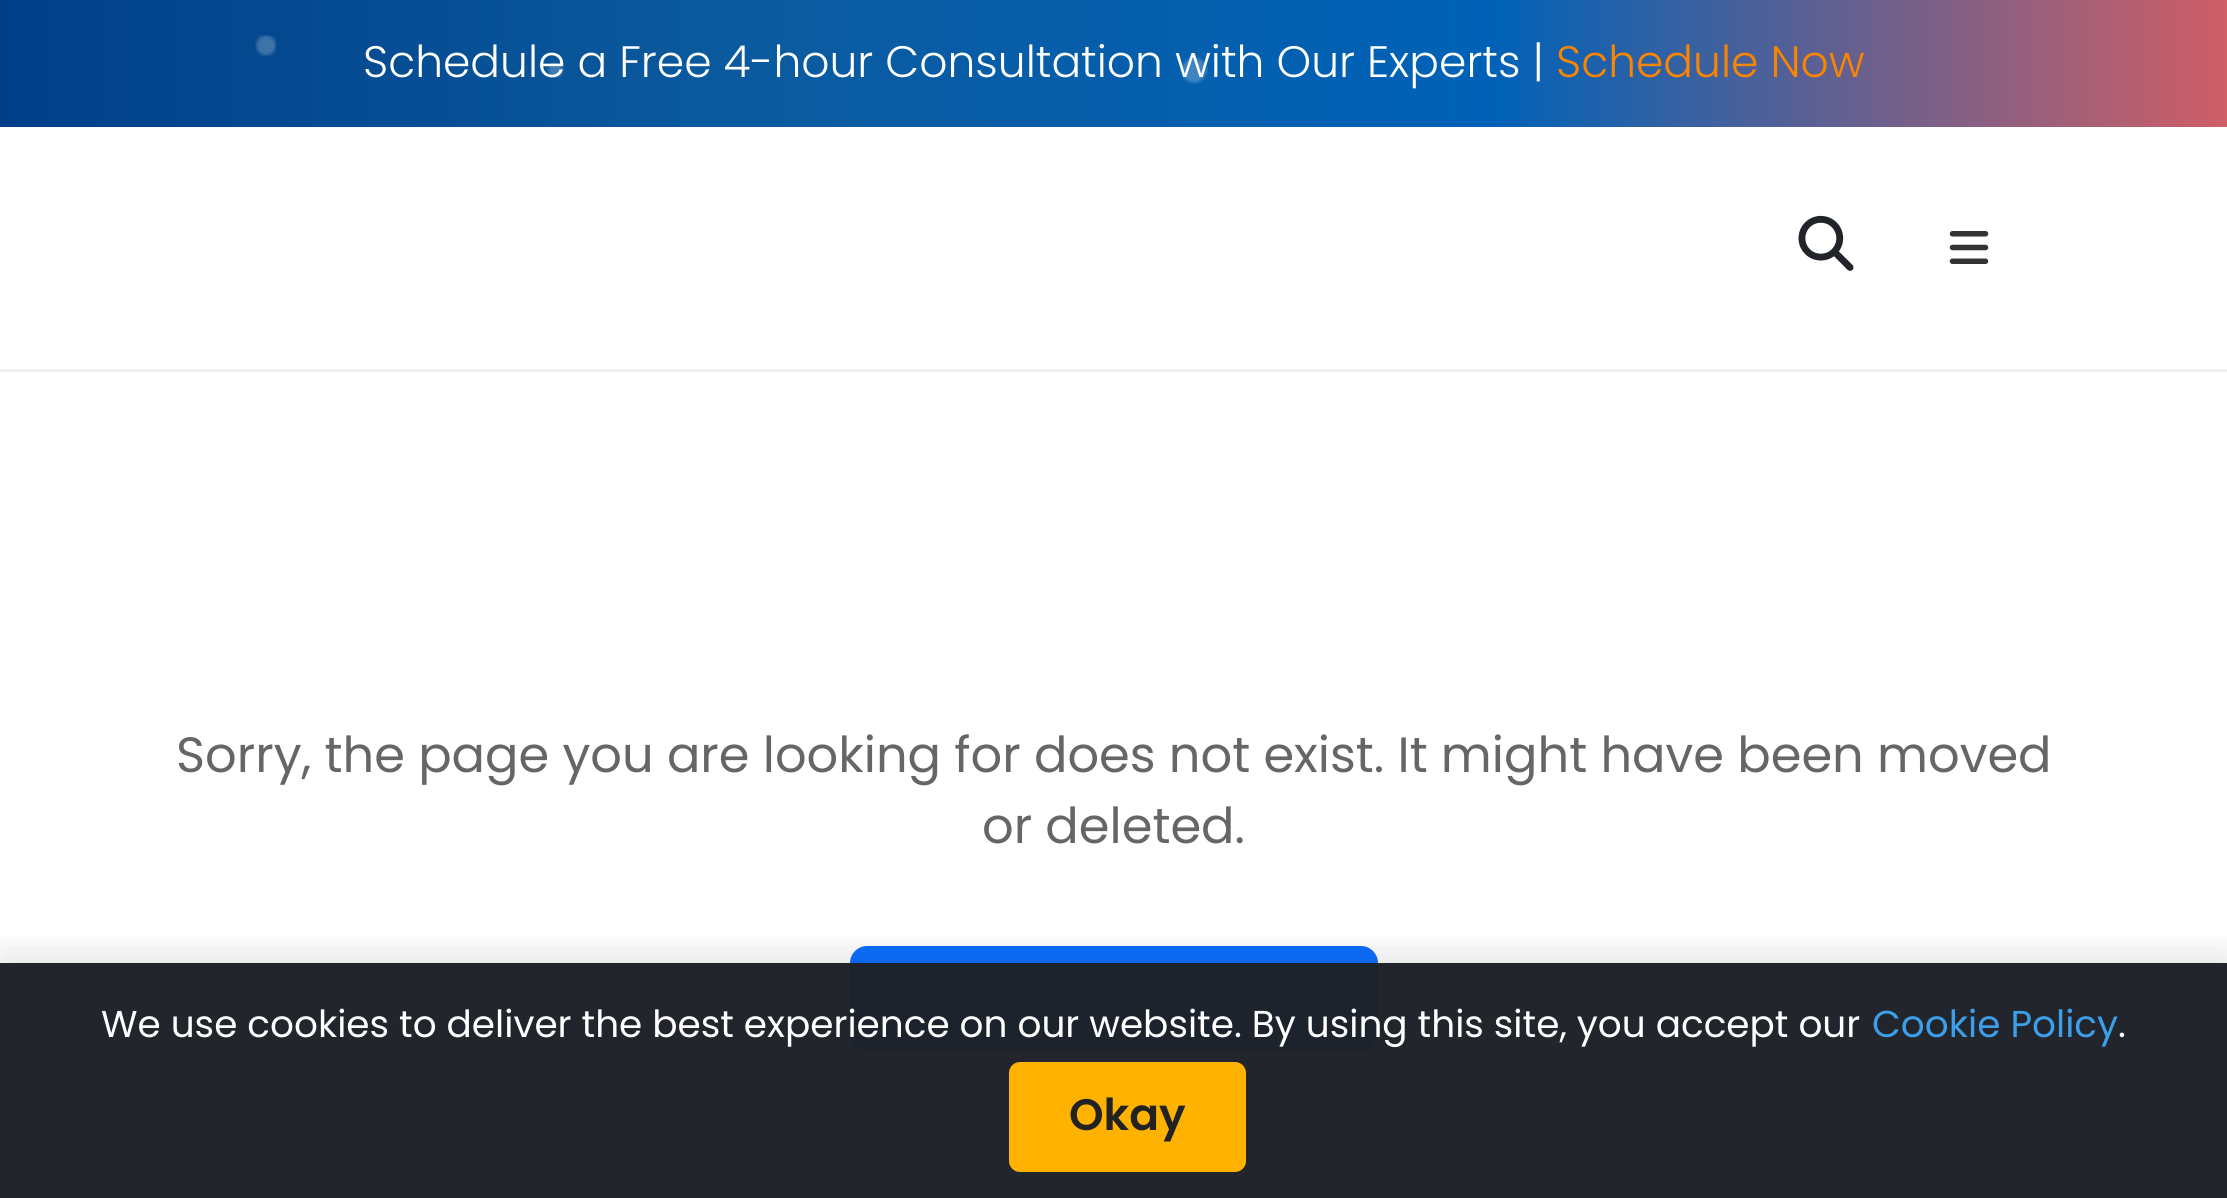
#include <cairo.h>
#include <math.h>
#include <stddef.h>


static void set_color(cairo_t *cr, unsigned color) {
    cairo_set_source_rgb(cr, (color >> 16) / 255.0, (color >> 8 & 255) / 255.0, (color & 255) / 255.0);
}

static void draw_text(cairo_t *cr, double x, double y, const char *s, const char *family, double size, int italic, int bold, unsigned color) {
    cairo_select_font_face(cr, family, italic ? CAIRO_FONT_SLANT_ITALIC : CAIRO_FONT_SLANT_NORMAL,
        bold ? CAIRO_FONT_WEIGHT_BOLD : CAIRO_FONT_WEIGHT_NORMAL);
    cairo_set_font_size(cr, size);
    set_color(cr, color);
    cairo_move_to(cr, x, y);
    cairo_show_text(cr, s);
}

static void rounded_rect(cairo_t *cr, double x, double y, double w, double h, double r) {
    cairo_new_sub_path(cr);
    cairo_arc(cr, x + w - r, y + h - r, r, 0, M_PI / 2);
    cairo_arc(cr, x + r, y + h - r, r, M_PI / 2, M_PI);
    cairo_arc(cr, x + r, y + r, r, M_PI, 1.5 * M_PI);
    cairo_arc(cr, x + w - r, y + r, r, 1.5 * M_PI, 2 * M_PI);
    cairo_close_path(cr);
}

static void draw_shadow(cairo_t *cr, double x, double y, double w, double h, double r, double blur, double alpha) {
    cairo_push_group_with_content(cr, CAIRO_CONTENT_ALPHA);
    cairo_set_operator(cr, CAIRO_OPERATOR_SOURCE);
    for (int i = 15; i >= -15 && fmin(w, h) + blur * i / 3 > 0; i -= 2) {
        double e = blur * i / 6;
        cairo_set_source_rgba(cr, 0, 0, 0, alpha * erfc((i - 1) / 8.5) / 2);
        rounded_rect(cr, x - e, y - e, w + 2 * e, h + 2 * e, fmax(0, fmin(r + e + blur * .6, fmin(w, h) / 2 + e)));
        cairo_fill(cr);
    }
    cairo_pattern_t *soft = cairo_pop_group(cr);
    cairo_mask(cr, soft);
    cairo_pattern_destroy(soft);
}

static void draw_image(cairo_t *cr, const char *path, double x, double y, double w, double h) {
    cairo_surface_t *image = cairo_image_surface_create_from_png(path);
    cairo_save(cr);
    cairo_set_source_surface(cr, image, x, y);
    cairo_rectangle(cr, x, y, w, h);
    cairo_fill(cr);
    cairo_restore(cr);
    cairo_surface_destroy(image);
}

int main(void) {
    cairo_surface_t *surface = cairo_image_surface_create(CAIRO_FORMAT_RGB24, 2227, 1198);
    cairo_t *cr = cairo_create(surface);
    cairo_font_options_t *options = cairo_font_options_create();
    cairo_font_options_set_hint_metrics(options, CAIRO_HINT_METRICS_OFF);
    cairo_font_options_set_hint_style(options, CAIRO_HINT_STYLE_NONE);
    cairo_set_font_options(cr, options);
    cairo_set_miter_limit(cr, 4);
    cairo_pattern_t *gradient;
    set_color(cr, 0xFFFFFF);
    cairo_paint(cr);
    gradient = cairo_pattern_create_linear(0, 63, 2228, 63);
    cairo_pattern_add_color_stop_rgba(gradient, 0, 0, 0.247, 0.533, 1);
    cairo_pattern_add_color_stop_rgba(gradient, 0.33, 0.043, 0.353, 0.62, 1);
    cairo_pattern_add_color_stop_rgba(gradient, 0.67, 0, 0.384, 0.718, 1);
    cairo_pattern_add_color_stop_rgba(gradient, 1, 0.816, 0.369, 0.4, 1);
    cairo_set_source(cr, gradient);
    cairo_pattern_destroy(gradient);
    cairo_rectangle(cr, 0, 0, 2227, 127);
    cairo_fill(cr);
    draw_text(cr, 363, 77, "Schedule a Free 4-hour Consultation with Our Experts |", "Poppins Light", 44, 0, 0, 0xFFFFFF);
    draw_image(cr, "assets/img1.png", 255, 35, 953, 49);
    draw_text(cr, 1556, 77, "Schedule Now", "Poppins Light", 44, 0, 0, 0xFB8501);
    cairo_set_source_rgba(cr, 0.2, 0.2, 0.2, 0.08);
    cairo_rectangle(cr, 0, 369, 2227, 3);
    cairo_fill(cr);
    draw_image(cr, "assets/img2.png", 1798, 215, 56, 56);
    draw_image(cr, "assets/img3.png", 1949, 231, 40, 33);
    draw_text(cr, 176, 772, "Sorry, the page you are looking for does not exist. It might have been moved", "Poppins", 49.5, 0, 0, 0x666666);
    draw_text(cr, 982, 843, "or deleted.", "Poppins", 49.5, 0, 0, 0x666666);
    set_color(cr, 0x0D6EFD);
    rounded_rect(cr, 851.5, 947.5, 525, 102, 15.5);
    cairo_fill_preserve(cr);
    cairo_set_line_width(cr, 3);
    cairo_stroke(cr);
    cairo_save(cr);
    cairo_set_fill_rule(cr, CAIRO_FILL_RULE_EVEN_ODD);
    cairo_new_path(cr);
    cairo_move_to(cr, 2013, 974);
    cairo_line_to(cr, 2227, 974);
    cairo_line_to(cr, 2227, 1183);
    cairo_line_to(cr, 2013, 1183);
    cairo_close_path(cr);
    cairo_move_to(cr, 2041, 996);
    cairo_line_to(cr, 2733, 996);
    cairo_curve_to(cr, 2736.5, 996, 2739, 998.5, 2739, 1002);
    cairo_line_to(cr, 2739, 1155);
    cairo_curve_to(cr, 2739, 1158.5, 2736.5, 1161, 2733, 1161);
    cairo_line_to(cr, 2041, 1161);
    cairo_curve_to(cr, 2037.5, 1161, 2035, 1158.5, 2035, 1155);
    cairo_line_to(cr, 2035, 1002);
    cairo_curve_to(cr, 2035, 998.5, 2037.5, 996, 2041, 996);
    cairo_close_path(cr);
    cairo_clip(cr);
    set_color(cr, 0x808080);
    draw_shadow(cr, 2035, 996, 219, 165, 6, 7, 1);
    cairo_restore(cr);
    cairo_save(cr);
    cairo_rectangle(cr, 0, 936, 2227, 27);
    cairo_clip(cr);
    set_color(cr, 0x000000);
    draw_shadow(cr, 0, 957, 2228, 237, 0, 22, 0.12);
    cairo_restore(cr);
    cairo_set_source_rgba(cr, 0.118, 0.133, 0.157, 0.98);
    cairo_rectangle(cr, 0, 963, 2227, 235);
    cairo_fill(cr);
    draw_text(cr, 101, 1037, "We use cookies to deliver the best experience on our website. By using this site, you accept our", "Poppins", 37.4, 0, 0, 0xFFFFFF);
    draw_text(cr, 1872, 1037, "Cookie Policy", "Poppins", 37.4, 0, 0, 0x3D9EE9);
    draw_text(cr, 2118, 1037, ".", "Poppins", 37.4, 0, 0, 0xFFFFFF);
    set_color(cr, 0xFFB300);
    rounded_rect(cr, 1009, 1062, 237, 110, 11);
    cairo_fill(cr);
    draw_text(cr, 1069, 1130, "Okay", "Poppins SemiBold", 44, 0, 0, 0x222222);
    cairo_surface_write_to_png(surface, "output.png");
    cairo_font_options_destroy(options);
    cairo_destroy(cr);
    cairo_surface_destroy(surface);
    return 0;
}
